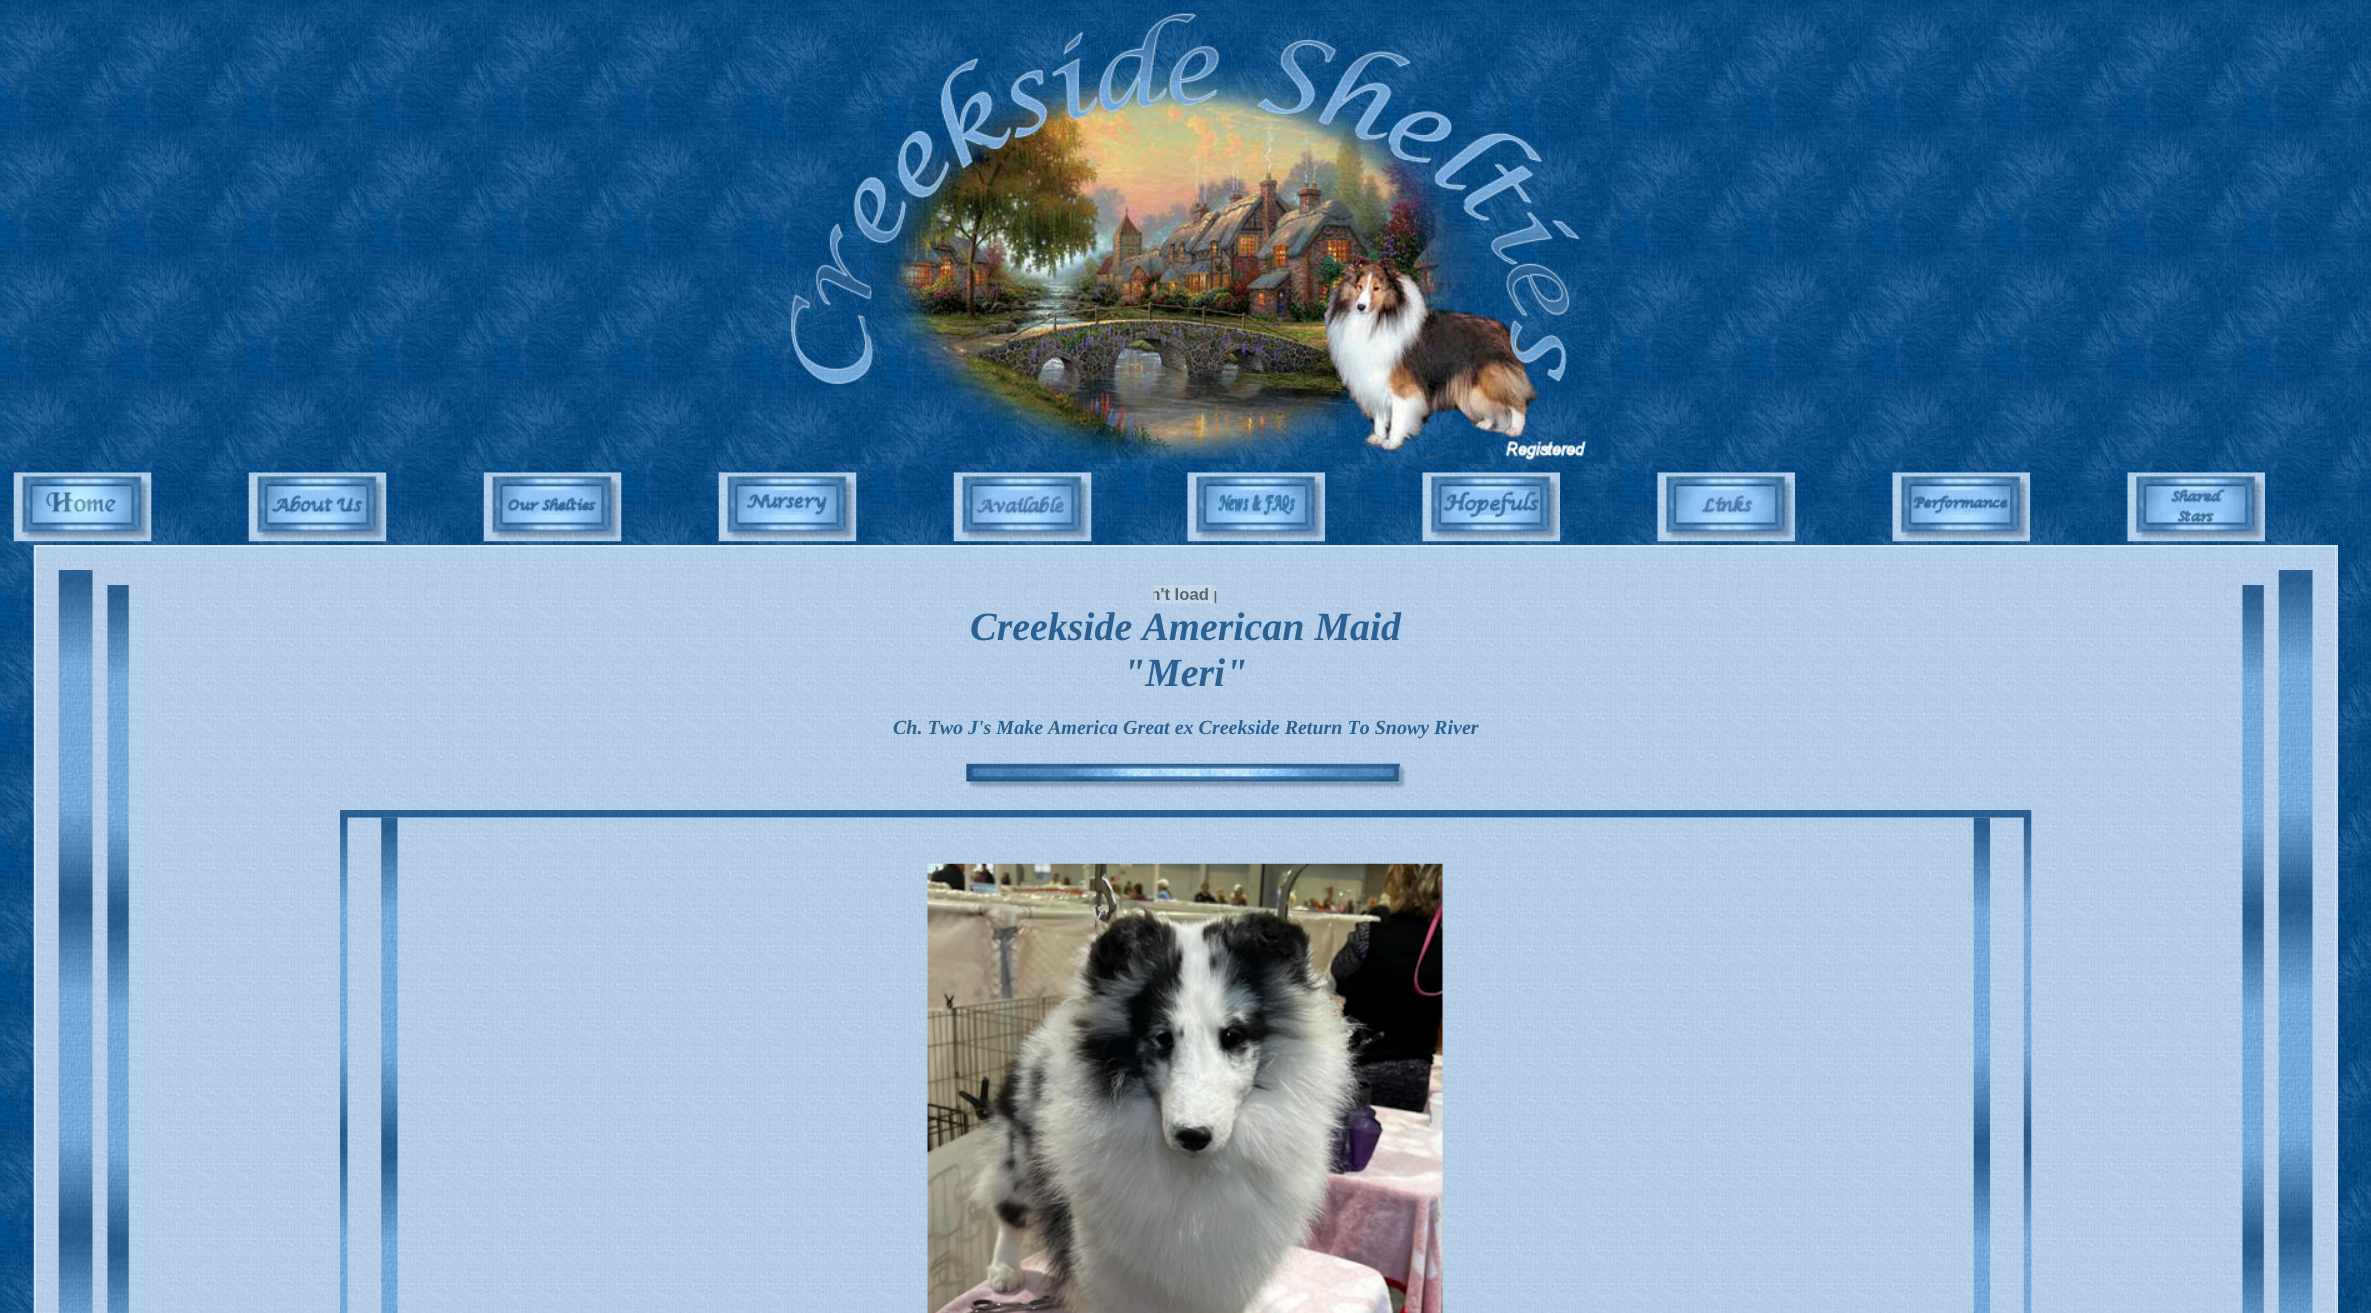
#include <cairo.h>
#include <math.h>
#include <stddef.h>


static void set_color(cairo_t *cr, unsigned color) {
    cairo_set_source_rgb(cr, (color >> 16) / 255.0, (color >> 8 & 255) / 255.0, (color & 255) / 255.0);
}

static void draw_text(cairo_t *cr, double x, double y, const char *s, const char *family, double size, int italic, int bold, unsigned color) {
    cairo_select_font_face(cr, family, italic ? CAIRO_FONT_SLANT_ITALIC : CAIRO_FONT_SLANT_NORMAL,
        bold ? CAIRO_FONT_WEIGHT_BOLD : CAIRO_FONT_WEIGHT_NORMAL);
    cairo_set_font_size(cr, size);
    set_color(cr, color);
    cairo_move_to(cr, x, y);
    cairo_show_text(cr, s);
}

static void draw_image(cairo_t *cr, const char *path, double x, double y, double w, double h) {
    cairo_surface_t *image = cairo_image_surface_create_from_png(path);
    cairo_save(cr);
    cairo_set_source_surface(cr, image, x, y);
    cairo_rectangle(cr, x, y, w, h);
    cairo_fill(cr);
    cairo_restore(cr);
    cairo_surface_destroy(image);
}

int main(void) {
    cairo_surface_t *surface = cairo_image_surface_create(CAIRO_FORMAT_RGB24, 2371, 1313);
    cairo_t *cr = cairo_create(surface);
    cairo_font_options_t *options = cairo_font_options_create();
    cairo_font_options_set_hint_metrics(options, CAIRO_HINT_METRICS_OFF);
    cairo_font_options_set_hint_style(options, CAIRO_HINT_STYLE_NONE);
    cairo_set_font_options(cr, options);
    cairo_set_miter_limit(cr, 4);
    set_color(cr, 0xFFFFFF);
    cairo_paint(cr);
    draw_image(cr, "assets/img1.png", 0, 0, 2371, 1313);
    draw_image(cr, "assets/img2.png", 762, 10, 848, 454);
    draw_image(cr, "assets/img3.png", 13, 472, 139, 70);
    draw_image(cr, "assets/img4.png", 248, 472, 139, 70);
    draw_image(cr, "assets/img5.png", 483, 472, 139, 70);
    draw_image(cr, "assets/img6.png", 718, 472, 139, 70);
    draw_image(cr, "assets/img7.png", 953, 472, 139, 70);
    draw_image(cr, "assets/img8.png", 1187, 472, 138, 70);
    draw_image(cr, "assets/img9.png", 1422, 472, 138, 70);
    draw_image(cr, "assets/img10.png", 1657, 472, 138, 70);
    draw_image(cr, "assets/img11.png", 1892, 472, 138, 70);
    draw_image(cr, "assets/img12.png", 2127, 472, 138, 70);
    draw_image(cr, "assets/img13.png", 33, 545, 2304, 768);
    cairo_rectangle(cr, 34.5, 545.5, 2303, 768);
    set_color(cr, 0xD5E6F5);
    cairo_set_line_width(cr, 1);
    cairo_stroke(cr);
    cairo_rectangle(cr, 35.5, 546.5, 2300, 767);
    cairo_stroke(cr);
    draw_image(cr, "assets/img14.png", 58, 570, 2255, 743);
    draw_image(cr, "assets/img15.png", 92, 570, 2187, 743);
    draw_image(cr, "assets/img16.png", 107, 585, 2157, 728);
    draw_image(cr, "assets/img17.png", 128, 585, 2115, 728);
    draw_image(cr, "assets/img18.png", 1153, 585, 64, 19);
    draw_text(cr, 970, 640, "Creekside American Maid", "Liberation Serif", 40, 1, 1, 0x2A6092);
    draw_text(cr, 1123, 686, "\"Meri\"", "Liberation Serif", 40, 1, 1, 0x2A6092);
    draw_text(cr, 893, 734, "Ch. Two J's Make America Great ex Creekside Return To Snowy River", "Liberation Serif", 20, 1, 1, 0x2A6092);
    draw_image(cr, "assets/img19.png", 961, 758, 448, 32);
    draw_image(cr, "assets/img20.png", 340, 810, 1692, 503);
    draw_image(cr, "assets/img21.png", 347, 817, 1677, 496);
    draw_image(cr, "assets/img22.png", 381, 817, 1609, 496);
    draw_image(cr, "assets/img23.png", 397, 817, 1577, 496);
    draw_image(cr, "assets/img24.png", 927, 863, 516, 450);
    cairo_surface_write_to_png(surface, "output.png");
    cairo_font_options_destroy(options);
    cairo_destroy(cr);
    cairo_surface_destroy(surface);
    return 0;
}
